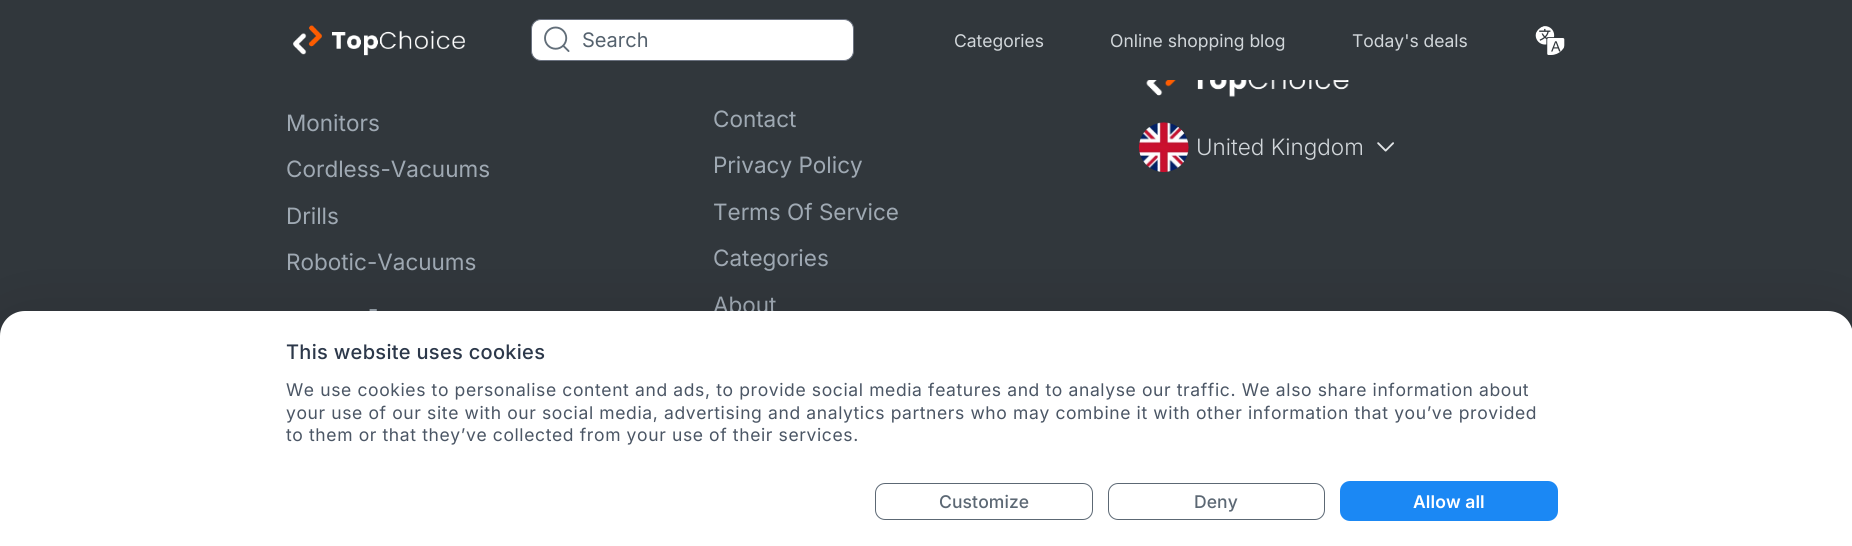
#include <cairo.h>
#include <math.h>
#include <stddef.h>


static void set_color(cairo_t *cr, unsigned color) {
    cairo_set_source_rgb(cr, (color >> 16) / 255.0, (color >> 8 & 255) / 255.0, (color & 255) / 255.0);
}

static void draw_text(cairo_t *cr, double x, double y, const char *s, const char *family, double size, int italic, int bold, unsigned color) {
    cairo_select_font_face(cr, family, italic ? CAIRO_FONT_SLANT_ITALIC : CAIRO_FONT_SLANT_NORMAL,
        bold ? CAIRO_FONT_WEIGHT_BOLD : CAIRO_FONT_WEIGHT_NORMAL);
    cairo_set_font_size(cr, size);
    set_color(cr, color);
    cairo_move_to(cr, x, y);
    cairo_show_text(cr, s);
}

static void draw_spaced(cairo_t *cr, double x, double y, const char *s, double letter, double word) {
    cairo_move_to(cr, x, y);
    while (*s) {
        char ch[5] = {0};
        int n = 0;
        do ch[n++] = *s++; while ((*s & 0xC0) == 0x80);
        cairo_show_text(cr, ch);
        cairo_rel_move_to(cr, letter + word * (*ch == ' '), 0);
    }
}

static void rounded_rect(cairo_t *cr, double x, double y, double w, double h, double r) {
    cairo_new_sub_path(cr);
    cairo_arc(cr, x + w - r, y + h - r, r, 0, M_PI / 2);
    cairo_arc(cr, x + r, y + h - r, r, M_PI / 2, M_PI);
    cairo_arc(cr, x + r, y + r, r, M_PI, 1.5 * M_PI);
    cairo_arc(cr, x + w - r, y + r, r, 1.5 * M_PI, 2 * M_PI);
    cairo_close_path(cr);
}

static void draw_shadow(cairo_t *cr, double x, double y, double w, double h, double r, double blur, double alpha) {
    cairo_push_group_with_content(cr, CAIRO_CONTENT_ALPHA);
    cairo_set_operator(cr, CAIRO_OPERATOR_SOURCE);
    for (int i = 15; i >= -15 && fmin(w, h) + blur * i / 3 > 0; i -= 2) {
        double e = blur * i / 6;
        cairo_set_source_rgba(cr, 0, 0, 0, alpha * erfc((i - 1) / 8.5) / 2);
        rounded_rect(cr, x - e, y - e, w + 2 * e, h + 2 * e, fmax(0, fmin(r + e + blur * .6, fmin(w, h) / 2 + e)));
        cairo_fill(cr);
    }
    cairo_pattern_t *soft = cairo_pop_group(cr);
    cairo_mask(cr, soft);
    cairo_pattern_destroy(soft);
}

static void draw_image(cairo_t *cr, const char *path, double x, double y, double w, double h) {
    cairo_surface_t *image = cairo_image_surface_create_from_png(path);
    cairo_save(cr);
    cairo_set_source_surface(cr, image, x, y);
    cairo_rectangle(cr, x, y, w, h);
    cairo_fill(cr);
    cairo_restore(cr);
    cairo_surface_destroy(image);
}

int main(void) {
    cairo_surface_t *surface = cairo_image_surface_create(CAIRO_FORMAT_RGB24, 1852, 546);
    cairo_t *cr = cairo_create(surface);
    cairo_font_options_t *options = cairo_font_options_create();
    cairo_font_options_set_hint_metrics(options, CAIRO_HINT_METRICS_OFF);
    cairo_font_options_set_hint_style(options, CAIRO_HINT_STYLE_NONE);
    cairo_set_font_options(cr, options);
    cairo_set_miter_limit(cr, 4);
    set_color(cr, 0x31373C);
    cairo_paint(cr);
    set_color(cr, 0xFFFFFF);
    rounded_rect(cr, 531.5, 19.5, 322, 41, 9.5);
    cairo_fill_preserve(cr);
    set_color(cr, 0x6B7280);
    cairo_set_line_width(cr, 1);
    cairo_stroke(cr);
    draw_image(cr, "assets/img1.png", 544, 26, 26, 26);
    draw_text(cr, 582, 47, "Search", "Inter", 20, 0, 0, 0x55626E);
    draw_image(cr, "assets/img2.png", 293, 25, 172, 31);
    draw_text(cr, 954, 47, "Categories", "Inter", 17.5, 0, 0, 0xD1D6DA);
    draw_text(cr, 1110, 47, "Online shopping blog", "Inter", 17.5, 0, 0, 0xD1D6DA);
    draw_text(cr, 1352, 47, "Today's deals", "Inter", 17.5, 0, 0, 0xD1D6DA);
    draw_image(cr, "assets/img3.png", 1535, 26, 30, 29);
    draw_text(cr, 286, 131, "Monitors", "Inter", 22.5, 0, 0, 0x9FA9B3);
    draw_text(cr, 286, 177, "Cordless-Vacuums", "Inter", 22.5, 0, 0, 0x9FA9B3);
    draw_text(cr, 286, 224, "Drills", "Inter", 22.5, 0, 0, 0x9FA9B3);
    draw_text(cr, 286, 270, "Robotic-Vacuums", "Inter", 22.5, 0, 0, 0x9FA9B3);
    draw_text(cr, 368, 317, "-", "Inter", 22.5, 0, 0, 0x9FA9B3);
    draw_text(cr, 713, 127, "Contact", "Inter", 22.5, 0, 0, 0x9FA9B3);
    draw_text(cr, 713, 173, "Privacy Policy", "Inter", 22.5, 0, 0, 0x9FA9B3);
    draw_text(cr, 713, 220, "Terms Of Service", "Inter", 22.5, 0, 0, 0x9FA9B3);
    draw_text(cr, 713, 266, "Categories", "Inter", 22.5, 0, 0, 0x9FA9B3);
    draw_text(cr, 713, 313, "About", "Inter", 22.5, 0, 0, 0x9FA9B3);
    draw_image(cr, "assets/img4.png", 1146, 80, 203, 17);
    draw_image(cr, "assets/img5.png", 1138, 122, 51, 51);
    draw_text(cr, 1196, 155, "United Kingdom", "Inter Light", 22.5, 0, 0, 0xD1D6DA);
    draw_image(cr, "assets/img6.png", 1377, 142, 17, 10);
    set_color(cr, 0x000000);
    draw_shadow(cr, 0, 349, 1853, 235, 25, 44, 0.3);
    set_color(cr, 0xFFFFFF);
    cairo_new_path(cr);
    cairo_move_to(cr, 25, 311);
    cairo_line_to(cr, 1828, 311);
    cairo_curve_to(cr, 1842, 311, 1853, 322, 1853, 336);
    cairo_line_to(cr, 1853, 546);
    cairo_line_to(cr, 0, 546);
    cairo_line_to(cr, 0, 336);
    cairo_curve_to(cr, 0, 322, 11, 311, 25, 311);
    cairo_close_path(cr);
    cairo_fill(cr);
    cairo_select_font_face(cr, "Inter Medium", CAIRO_FONT_SLANT_NORMAL, CAIRO_FONT_WEIGHT_NORMAL);
    cairo_set_font_size(cr, 20);
    set_color(cr, 0x2C384A);
    draw_spaced(cr, 286, 359, "This website uses cookies", 0.3, 0);
    cairo_select_font_face(cr, "Inter", CAIRO_FONT_SLANT_NORMAL, CAIRO_FONT_WEIGHT_NORMAL);
    cairo_set_font_size(cr, 17.5);
    set_color(cr, 0x4B5665);
    draw_spaced(cr, 286, 396, "We use cookies to personalise content and ads, to provide social media features and to analyse our traffic. We also share information about", 0.62, 0);
    draw_spaced(cr, 286, 419, "your use of our site with our social media, advertising and analytics partners who may combine it with other information that you’ve provided", 0.62, 0);
    draw_spaced(cr, 286, 441, "to them or that they’ve collected from your use of their services.", 0.62, 0);
    rounded_rect(cr, 875.5, 483.5, 217, 36, 9.5);
    set_color(cr, 0x5C6874);
    cairo_stroke(cr);
    cairo_select_font_face(cr, "Inter Medium", CAIRO_FONT_SLANT_NORMAL, CAIRO_FONT_WEIGHT_NORMAL);
    draw_spaced(cr, 939, 508, "Customize", 0.1, 0);
    rounded_rect(cr, 1108.5, 483.5, 216, 36, 9.5);
    cairo_stroke(cr);
    draw_spaced(cr, 1194, 508, "Deny", 0.1, 0);
    set_color(cr, 0x1B88F4);
    rounded_rect(cr, 1340, 481, 218, 40, 10);
    cairo_fill(cr);
    cairo_select_font_face(cr, "Inter SemiBold", CAIRO_FONT_SLANT_NORMAL, CAIRO_FONT_WEIGHT_NORMAL);
    set_color(cr, 0xFFFFFF);
    draw_spaced(cr, 1413, 508, "Allow all", 0.1, 0);
    cairo_surface_write_to_png(surface, "output.png");
    cairo_font_options_destroy(options);
    cairo_destroy(cr);
    cairo_surface_destroy(surface);
    return 0;
}
